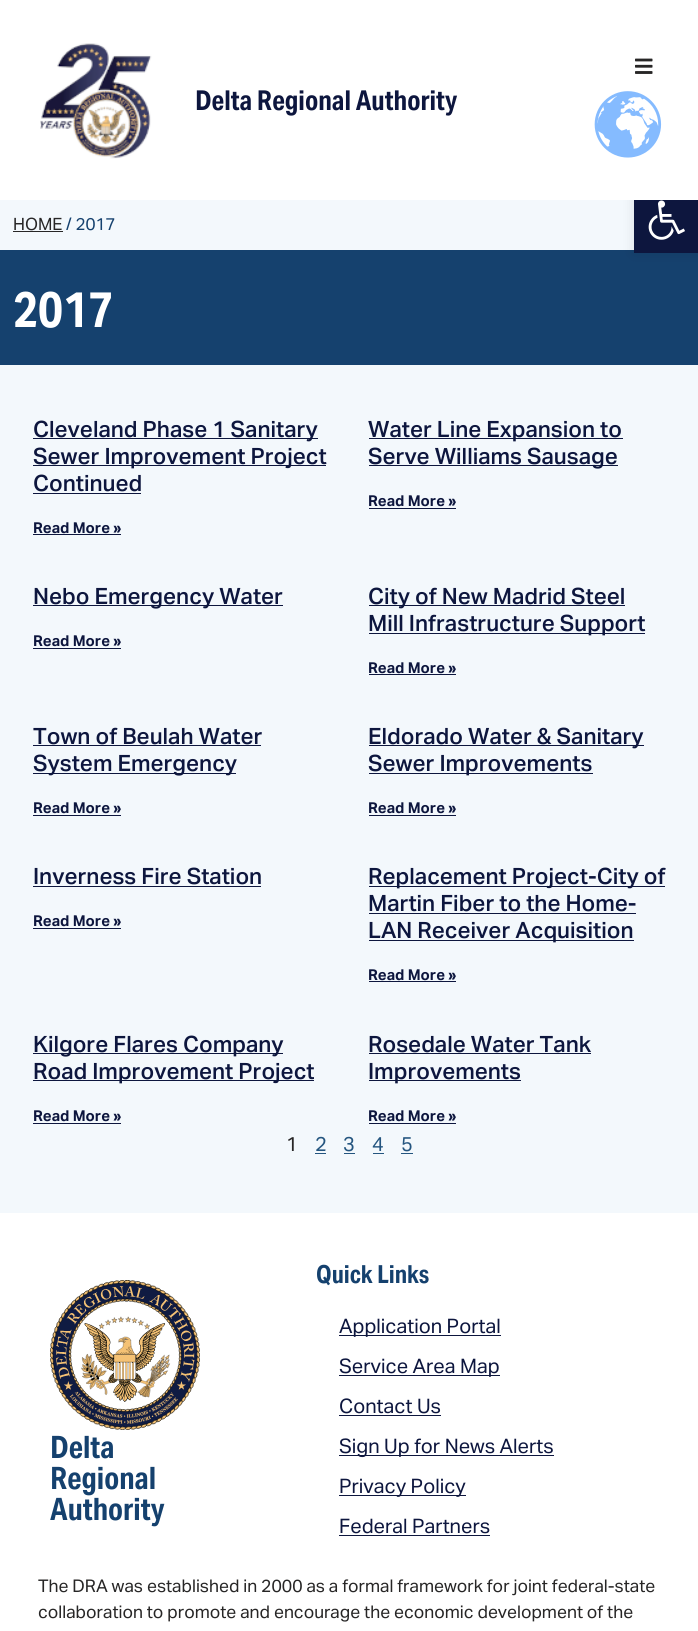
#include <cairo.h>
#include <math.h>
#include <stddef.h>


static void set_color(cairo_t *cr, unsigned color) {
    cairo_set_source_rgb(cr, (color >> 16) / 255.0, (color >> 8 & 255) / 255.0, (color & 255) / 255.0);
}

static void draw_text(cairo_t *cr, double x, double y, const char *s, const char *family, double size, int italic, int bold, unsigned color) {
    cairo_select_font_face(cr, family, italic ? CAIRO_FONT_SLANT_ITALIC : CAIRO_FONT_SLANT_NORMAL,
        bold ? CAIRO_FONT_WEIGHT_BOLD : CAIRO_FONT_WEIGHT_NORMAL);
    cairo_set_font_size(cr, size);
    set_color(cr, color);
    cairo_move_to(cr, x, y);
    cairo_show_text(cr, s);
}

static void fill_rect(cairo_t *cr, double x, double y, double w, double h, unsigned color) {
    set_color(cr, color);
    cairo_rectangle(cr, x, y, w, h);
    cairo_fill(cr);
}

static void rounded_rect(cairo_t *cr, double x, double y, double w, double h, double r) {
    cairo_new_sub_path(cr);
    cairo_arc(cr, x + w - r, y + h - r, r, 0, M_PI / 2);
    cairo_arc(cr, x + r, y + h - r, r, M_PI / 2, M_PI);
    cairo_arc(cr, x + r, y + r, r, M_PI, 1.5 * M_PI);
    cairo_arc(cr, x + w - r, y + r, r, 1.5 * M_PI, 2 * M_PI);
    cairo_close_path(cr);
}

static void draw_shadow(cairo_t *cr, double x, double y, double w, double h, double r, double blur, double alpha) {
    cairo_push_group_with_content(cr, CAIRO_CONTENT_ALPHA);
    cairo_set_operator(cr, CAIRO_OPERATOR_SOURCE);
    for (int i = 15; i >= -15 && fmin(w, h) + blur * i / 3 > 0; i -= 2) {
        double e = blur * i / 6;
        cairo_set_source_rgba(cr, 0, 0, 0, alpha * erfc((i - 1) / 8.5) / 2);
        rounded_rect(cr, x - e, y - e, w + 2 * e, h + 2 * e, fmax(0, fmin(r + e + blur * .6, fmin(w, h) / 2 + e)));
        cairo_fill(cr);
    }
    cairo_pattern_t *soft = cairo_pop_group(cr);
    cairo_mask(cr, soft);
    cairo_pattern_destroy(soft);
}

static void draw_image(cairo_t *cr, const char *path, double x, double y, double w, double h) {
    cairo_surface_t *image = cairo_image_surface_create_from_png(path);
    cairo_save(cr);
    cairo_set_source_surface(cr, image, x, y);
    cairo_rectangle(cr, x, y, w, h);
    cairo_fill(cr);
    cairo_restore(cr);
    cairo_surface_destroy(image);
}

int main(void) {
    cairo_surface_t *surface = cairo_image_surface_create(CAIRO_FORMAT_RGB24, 698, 1631);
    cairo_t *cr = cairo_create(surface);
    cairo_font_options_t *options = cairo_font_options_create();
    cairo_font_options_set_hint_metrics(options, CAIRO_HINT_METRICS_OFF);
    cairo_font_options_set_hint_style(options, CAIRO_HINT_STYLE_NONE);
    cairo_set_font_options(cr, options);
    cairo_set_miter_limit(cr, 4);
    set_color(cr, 0xF3F8FC);
    cairo_paint(cr);
    fill_rect(cr, 0, 250, 698, 115, 0x15416E);
    set_color(cr, 0x000000);
    draw_shadow(cr, 634, 188, 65, 65, 0, 6, 0.1);
    fill_rect(cr, 0, 0, 698, 200, 0xFFFFFF);
    draw_image(cr, "assets/img1.png", 40, 43, 112, 116);
    draw_text(cr, 195, 110, "Delta Regional Authority", "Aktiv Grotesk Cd", 27.5, 0, 1, 0x0D163E);
    draw_image(cr, "assets/img2.png", 635, 58, 18, 16);
    draw_image(cr, "assets/img3.png", 594, 91, 68, 67);
    draw_text(cr, 13, 230, "HOME", "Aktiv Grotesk", 17, 0, 0, 0x272626);
    fill_rect(cr, 13, 231, 50, 1, 0x272626);
    draw_text(cr, 66, 230, "/ 2017", "Aktiv Grotesk", 17, 0, 0, 0x15416E);
    fill_rect(cr, 634, 200, 64, 53, 0x0D163E);
    draw_image(cr, "assets/img4.png", 648, 200, 37, 40);
    draw_text(cr, 13, 327, "2017", "Aktiv Grotesk Cd", 50, 0, 1, 0xFFFFFF);
    fill_rect(cr, 33, 438, 285, 1, 0x0D163E);
    draw_text(cr, 33, 437, "Cleveland Phase 1 Sanitary", "Aktiv Grotesk Medium", 22.5, 0, 0, 0x0D163E);
    fill_rect(cr, 33, 465, 293, 1, 0x0D163E);
    draw_text(cr, 33, 464, "Sewer Improvement Project", "Aktiv Grotesk Medium", 22.5, 0, 0, 0x0D163E);
    draw_text(cr, 33, 491, "Continued", "Aktiv Grotesk Medium", 22.5, 0, 0, 0x0D163E);
    fill_rect(cr, 33, 493, 108, 1, 0x0D163E);
    draw_text(cr, 33, 533, "Read More »", "Aktiv Grotesk", 15, 0, 1, 0x0D163E);
    fill_rect(cr, 33, 534, 88, 1, 0x0D163E);
    fill_rect(cr, 369, 438, 254, 1, 0x0D163E);
    draw_text(cr, 368, 437, "Water Line Expansion to", "Aktiv Grotesk Medium", 22.5, 0, 0, 0x0D163E);
    fill_rect(cr, 369, 465, 249, 1, 0x0D163E);
    draw_text(cr, 368, 464, "Serve Williams Sausage", "Aktiv Grotesk Medium", 22.5, 0, 0, 0x0D163E);
    draw_text(cr, 368, 506, "Read More »", "Aktiv Grotesk", 15, 0, 1, 0x0D163E);
    fill_rect(cr, 369, 508, 87, 1, 0x0D163E);
    fill_rect(cr, 33, 605, 250, 1, 0x0D163E);
    draw_text(cr, 33, 604, "Nebo Emergency Water", "Aktiv Grotesk Medium", 22.5, 0, 0, 0x0D163E);
    draw_text(cr, 33, 646, "Read More »", "Aktiv Grotesk", 15, 0, 1, 0x0D163E);
    fill_rect(cr, 33, 648, 88, 1, 0x0D163E);
    fill_rect(cr, 369, 605, 256, 1, 0x0D163E);
    draw_text(cr, 368, 604, "City of New Madrid Steel", "Aktiv Grotesk Medium", 22.5, 0, 0, 0x0D163E);
    fill_rect(cr, 369, 633, 276, 1, 0x0D163E);
    draw_text(cr, 368, 631, "Mill Infrastructure Support", "Aktiv Grotesk Medium", 22.5, 0, 0, 0x0D163E);
    draw_text(cr, 368, 673, "Read More »", "Aktiv Grotesk", 15, 0, 1, 0x0D163E);
    fill_rect(cr, 369, 674, 87, 1, 0x0D163E);
    draw_text(cr, 33, 744, "Town of Beulah Water", "Aktiv Grotesk Medium", 22.5, 0, 0, 0x0D163E);
    fill_rect(cr, 33, 745, 228, 1, 0x0D163E);
    fill_rect(cr, 33, 773, 203, 1, 0x0D163E);
    draw_text(cr, 33, 771, "System Emergency", "Aktiv Grotesk Medium", 22.5, 0, 0, 0x0D163E);
    draw_text(cr, 33, 813, "Read More »", "Aktiv Grotesk", 15, 0, 1, 0x0D163E);
    fill_rect(cr, 33, 815, 88, 1, 0x0D163E);
    fill_rect(cr, 369, 745, 275, 1, 0x0D163E);
    draw_text(cr, 368, 744, "Eldorado Water & Sanitary", "Aktiv Grotesk Medium", 22.5, 0, 0, 0x0D163E);
    fill_rect(cr, 369, 773, 224, 1, 0x0D163E);
    draw_text(cr, 368, 771, "Sewer Improvements", "Aktiv Grotesk Medium", 22.5, 0, 0, 0x0D163E);
    draw_text(cr, 368, 813, "Read More »", "Aktiv Grotesk", 15, 0, 1, 0x0D163E);
    fill_rect(cr, 369, 815, 87, 1, 0x0D163E);
    draw_text(cr, 33, 884, "Inverness Fire Station", "Aktiv Grotesk Medium", 22.5, 0, 0, 0x0D163E);
    fill_rect(cr, 33, 886, 228, 1, 0x0D163E);
    draw_text(cr, 33, 926, "Read More »", "Aktiv Grotesk", 15, 0, 1, 0x0D163E);
    fill_rect(cr, 33, 928, 88, 1, 0x0D163E);
    fill_rect(cr, 369, 886, 296, 1, 0x0D163E);
    draw_text(cr, 368, 884, "Replacement Project-City of", "Aktiv Grotesk Medium", 22.5, 0, 0, 0x0D163E);
    draw_text(cr, 368, 911, "Martin Fiber to the Home-", "Aktiv Grotesk Medium", 22.5, 0, 0, 0x0D163E);
    fill_rect(cr, 369, 913, 267, 1, 0x0D163E);
    fill_rect(cr, 369, 940, 265, 1, 0x0D163E);
    draw_text(cr, 368, 938, "LAN Receiver Acquisition", "Aktiv Grotesk Medium", 22.5, 0, 0, 0x0D163E);
    draw_text(cr, 368, 980, "Read More »", "Aktiv Grotesk", 15, 0, 1, 0x0D163E);
    fill_rect(cr, 369, 981, 87, 1, 0x0D163E);
    fill_rect(cr, 33, 1053, 250, 1, 0x0D163E);
    draw_text(cr, 33, 1052, "Kilgore Flares Company", "Aktiv Grotesk Medium", 22.5, 0, 0, 0x0D163E);
    fill_rect(cr, 33, 1080, 281, 1, 0x0D163E);
    draw_text(cr, 33, 1079, "Road Improvement Project", "Aktiv Grotesk Medium", 22.5, 0, 0, 0x0D163E);
    draw_text(cr, 33, 1121, "Read More »", "Aktiv Grotesk", 15, 0, 1, 0x0D163E);
    fill_rect(cr, 33, 1123, 88, 1, 0x0D163E);
    draw_text(cr, 368, 1052, "Rosedale Water Tank", "Aktiv Grotesk Medium", 22.5, 0, 0, 0x0D163E);
    fill_rect(cr, 369, 1053, 222, 1, 0x0D163E);
    fill_rect(cr, 369, 1080, 152, 1, 0x0D163E);
    draw_text(cr, 368, 1079, "Improvements", "Aktiv Grotesk Medium", 22.5, 0, 0, 0x0D163E);
    draw_text(cr, 368, 1121, "Read More »", "Aktiv Grotesk", 15, 0, 1, 0x0D163E);
    fill_rect(cr, 369, 1123, 87, 1, 0x0D163E);
    draw_text(cr, 286, 1151, "1", "Aktiv Grotesk", 20, 0, 0, 0x272626);
    draw_text(cr, 315, 1151, "2", "Aktiv Grotesk", 20, 0, 0, 0x24557F);
    fill_rect(cr, 315, 1153, 11, 1, 0x24557F);
    draw_text(cr, 343, 1151, "3", "Aktiv Grotesk", 20, 0, 0, 0x24557F);
    fill_rect(cr, 344, 1153, 11, 1, 0x24557F);
    draw_text(cr, 372, 1151, "4", "Aktiv Grotesk", 20, 0, 0, 0x24557F);
    fill_rect(cr, 373, 1153, 11, 1, 0x24557F);
    draw_text(cr, 401, 1151, "5", "Aktiv Grotesk", 20, 0, 0, 0x24557F);
    fill_rect(cr, 401, 1153, 12, 1, 0x24557F);
    fill_rect(cr, 0, 1213, 698, 418, 0xFFFFFF);
    draw_image(cr, "assets/img5.png", 50, 1280, 150, 150);
    draw_text(cr, 50, 1458, "Delta", "Aktiv Grotesk Cd", 31, 0, 1, 0x15416E);
    draw_text(cr, 50, 1489, "Regional", "Aktiv Grotesk Cd", 31, 0, 1, 0x15416E);
    draw_text(cr, 50, 1520, "Authority", "Aktiv Grotesk Cd", 31, 0, 1, 0x15416E);
    draw_text(cr, 316, 1283, "Quick Links", "Aktiv Grotesk Cd", 25, 0, 1, 0x15416E);
    fill_rect(cr, 339, 1335, 162, 1, 0x0D163E);
    draw_text(cr, 339, 1333, "Application Portal", "Aktiv Grotesk", 20, 0, 0, 0x0D163E);
    fill_rect(cr, 339, 1375, 161, 1, 0x0D163E);
    draw_text(cr, 339, 1373, "Service Area Map", "Aktiv Grotesk", 20, 0, 0, 0x0D163E);
    draw_text(cr, 339, 1413, "Contact Us", "Aktiv Grotesk", 20, 0, 0, 0x0D163E);
    fill_rect(cr, 339, 1415, 102, 1, 0x0D163E);
    fill_rect(cr, 339, 1455, 215, 1, 0x0D163E);
    draw_text(cr, 339, 1453, "Sign Up for News Alerts", "Aktiv Grotesk", 20, 0, 0, 0x0D163E);
    fill_rect(cr, 339, 1495, 127, 1, 0x0D163E);
    draw_text(cr, 339, 1493, "Privacy Policy", "Aktiv Grotesk", 20, 0, 0, 0x0D163E);
    draw_text(cr, 339, 1533, "Federal Partners", "Aktiv Grotesk", 20, 0, 0, 0x0D163E);
    fill_rect(cr, 339, 1535, 151, 1, 0x0D163E);
    draw_text(cr, 38, 1592, "The DRA was established in 2000 as a formal framework for joint federal-state", "Aktiv Grotesk", 17.5, 0, 0, 0x272626);
    draw_text(cr, 38, 1618, "collaboration to promote and encourage the economic development of the", "Aktiv Grotesk", 17.5, 0, 0, 0x272626);
    cairo_surface_write_to_png(surface, "output.png");
    cairo_font_options_destroy(options);
    cairo_destroy(cr);
    cairo_surface_destroy(surface);
    return 0;
}
